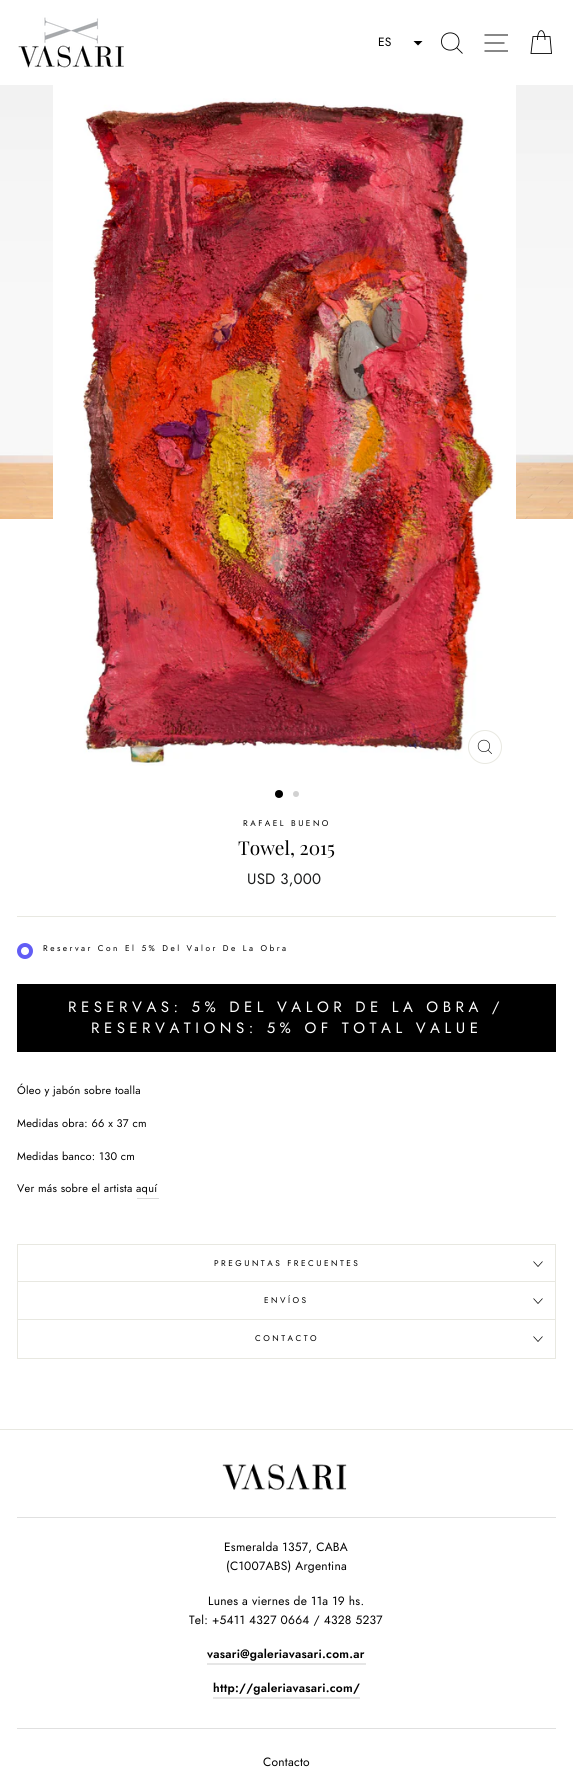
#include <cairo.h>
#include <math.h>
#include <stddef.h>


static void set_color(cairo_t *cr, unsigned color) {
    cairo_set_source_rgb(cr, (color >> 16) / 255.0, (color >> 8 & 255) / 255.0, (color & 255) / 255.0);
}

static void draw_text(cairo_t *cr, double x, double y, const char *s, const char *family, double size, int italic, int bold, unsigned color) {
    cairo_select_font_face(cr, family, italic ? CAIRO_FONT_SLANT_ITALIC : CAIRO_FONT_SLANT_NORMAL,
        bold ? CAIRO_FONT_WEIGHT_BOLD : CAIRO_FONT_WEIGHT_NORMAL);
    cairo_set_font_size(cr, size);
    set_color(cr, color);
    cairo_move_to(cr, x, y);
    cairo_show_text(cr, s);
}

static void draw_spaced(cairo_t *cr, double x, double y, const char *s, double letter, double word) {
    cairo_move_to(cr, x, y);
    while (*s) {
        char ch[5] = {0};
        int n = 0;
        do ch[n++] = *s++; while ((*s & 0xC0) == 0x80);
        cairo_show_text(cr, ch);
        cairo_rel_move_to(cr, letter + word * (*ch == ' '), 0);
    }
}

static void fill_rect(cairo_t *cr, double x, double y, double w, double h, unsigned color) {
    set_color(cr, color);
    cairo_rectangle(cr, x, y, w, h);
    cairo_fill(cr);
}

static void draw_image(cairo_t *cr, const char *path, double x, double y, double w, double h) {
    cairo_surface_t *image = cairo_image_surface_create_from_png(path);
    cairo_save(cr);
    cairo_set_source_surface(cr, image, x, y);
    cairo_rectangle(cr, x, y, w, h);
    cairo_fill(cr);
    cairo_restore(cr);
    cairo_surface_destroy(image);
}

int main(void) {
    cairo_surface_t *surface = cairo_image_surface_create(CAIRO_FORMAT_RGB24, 573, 1769);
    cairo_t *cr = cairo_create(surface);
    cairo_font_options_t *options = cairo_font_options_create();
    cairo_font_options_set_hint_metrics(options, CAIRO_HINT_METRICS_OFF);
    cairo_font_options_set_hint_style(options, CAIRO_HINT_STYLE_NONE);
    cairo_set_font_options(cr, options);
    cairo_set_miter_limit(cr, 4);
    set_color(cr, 0xFFFFFF);
    cairo_paint(cr);
    draw_image(cr, "assets/img1.png", 18, 17, 106, 51);
    cairo_new_path(cr);
    cairo_move_to(cr, 459, 41.5);
    cairo_curve_to(cr, 459, 53, 441.5, 53, 441.5, 41.5);
    cairo_curve_to(cr, 441.5, 30, 459, 30, 459, 41.5);
    cairo_close_path(cr);
    cairo_move_to(cr, 462.5, 53.5);
    cairo_line_to(cr, 456.5, 47.5);
    set_color(cr, 0x000000);
    cairo_set_line_width(cr, 0.9);
    cairo_stroke(cr);
    cairo_new_path(cr);
    cairo_move_to(cr, 484.5, 35);
    cairo_line_to(cr, 508, 35);
    cairo_move_to(cr, 484.5, 43);
    cairo_line_to(cr, 504.5, 43);
    cairo_move_to(cr, 484.5, 51);
    cairo_line_to(cr, 508, 51);
    cairo_move_to(cr, 537.5, 40);
    cairo_curve_to(cr, 537.5, 27.5, 545, 27.5, 545, 40);
    cairo_stroke(cr);
    cairo_select_font_face(cr, "Jost", CAIRO_FONT_SLANT_NORMAL, CAIRO_FONT_WEIGHT_NORMAL);
    cairo_set_font_size(cr, 12);
    draw_spaced(cr, 378, 46, "ES", 0.25, 0);
    cairo_save(cr);
    cairo_rectangle(cr, 413, 41, 10, 5);
    cairo_clip(cr);
    cairo_set_fill_rule(cr, CAIRO_FILL_RULE_EVEN_ODD);
    cairo_new_path(cr);
    cairo_move_to(cr, 423, 40.5);
    cairo_line_to(cr, 418, 45.5);
    cairo_line_to(cr, 413, 40.5);
    cairo_close_path(cr);
    cairo_fill(cr);
    cairo_restore(cr);
    cairo_new_path(cr);
    cairo_move_to(cr, 533, 36.5);
    cairo_line_to(cr, 550, 36.5);
    cairo_line_to(cr, 551.5, 53.5);
    cairo_line_to(cr, 531, 53.5);
    cairo_close_path(cr);
    cairo_stroke(cr);
    draw_image(cr, "assets/img2.png", 0, 85, 53, 434);
    draw_image(cr, "assets/img3.png", 83, 98, 413, 668);
    cairo_arc(cr, 485, 747, 16.5, 0, 2 * M_PI);
    set_color(cr, 0xE8E8E1);
    cairo_set_line_width(cr, 1);
    cairo_stroke(cr);
    draw_image(cr, "assets/img4.png", 477, 739, 15, 15);
    draw_image(cr, "assets/img5.png", 516, 85, 57, 434);
    set_color(cr, 0x000000);
    cairo_arc(cr, 279, 794, 4, 0, 2 * M_PI);
    cairo_fill(cr);
    set_color(cr, 0xD1D1D1);
    cairo_arc(cr, 296, 794, 3, 0, 2 * M_PI);
    cairo_fill(cr);
    cairo_set_font_size(cr, 8.3);
    set_color(cr, 0x000000);
    draw_spaced(cr, 243, 826, "RAFAEL BUENO", 2.5, 0);
    draw_text(cr, 238, 855, "Towel, 2015", "Playfair Display", 19, 0, 0, 0x000000);
    cairo_select_font_face(cr, "Jost", CAIRO_FONT_SLANT_NORMAL, CAIRO_FONT_WEIGHT_NORMAL);
    cairo_set_font_size(cr, 15);
    set_color(cr, 0x1C1D1D);
    draw_spaced(cr, 247, 884, "USD 3,000", 0.25, 0);
    fill_rect(cr, 17, 916, 539, 1, 0xE8E8E1);
    cairo_new_path(cr);
    cairo_arc(cr, 25, 951, 6, 0, 2 * M_PI);
    set_color(cr, 0x625DF5);
    cairo_set_line_width(cr, 4);
    cairo_stroke(cr);
    cairo_set_font_size(cr, 8.3);
    set_color(cr, 0x000000);
    draw_spaced(cr, 43, 951, "Reservar Con El 5% Del Valor De La Obra", 2.5, 0);
    fill_rect(cr, 17, 984, 539, 68, 0x000000);
    cairo_set_font_size(cr, 15);
    set_color(cr, 0xFFFFFF);
    draw_spaced(cr, 68, 1012, "RESERVAS: 5% DEL VALOR DE LA OBRA /", 4.5, 0);
    draw_spaced(cr, 91, 1033, "RESERVATIONS: 5% OF TOTAL VALUE", 4.5, 0);
    cairo_set_font_size(cr, 11);
    set_color(cr, 0x000000);
    draw_spaced(cr, 17, 1094, "Óleo y jabón sobre toalla", 0.25, 0);
    draw_spaced(cr, 17, 1127, "Medidas obra: 66 x 37 cm", 0.25, 0);
    draw_spaced(cr, 17, 1160, "Medidas banco: 130 cm", 0.25, 0);
    draw_spaced(cr, 17, 1192, "Ver más sobre el artista aquí", 0.25, 0);
    fill_rect(cr, 137, 1198, 22, 1, 0xD9D9D9);
    fill_rect(cr, 17, 1358, 539, 1, 0xE8E8E1);
    fill_rect(cr, 17, 1244, 539, 1, 0xE8E8E1);
    fill_rect(cr, 555, 1244, 1, 38, 0xE8E8E1);
    fill_rect(cr, 17, 1244, 1, 38, 0xE8E8E1);
    cairo_set_font_size(cr, 8.3);
    set_color(cr, 0x000000);
    draw_spaced(cr, 214, 1266, "PREGUNTAS FRECUENTES", 2.5, 0);
    cairo_new_path(cr);
    cairo_move_to(cr, 533.5, 1261.5);
    cairo_line_to(cr, 538, 1266.5);
    cairo_line_to(cr, 542.5, 1261.5);
    cairo_set_line_width(cr, 0.7);
    cairo_stroke(cr);
    fill_rect(cr, 17, 1281, 539, 1, 0xE8E8E1);
    fill_rect(cr, 555, 1281, 1, 38, 0xE8E8E1);
    fill_rect(cr, 17, 1281, 1, 38, 0xE8E8E1);
    set_color(cr, 0x000000);
    draw_spaced(cr, 264, 1303, "ENVÍOS", 2.5, 0);
    cairo_new_path(cr);
    cairo_move_to(cr, 533.5, 1298.5);
    cairo_line_to(cr, 538, 1303.5);
    cairo_line_to(cr, 542.5, 1298.5);
    cairo_stroke(cr);
    fill_rect(cr, 17, 1319, 539, 1, 0xE8E8E1);
    fill_rect(cr, 555, 1319, 1, 39, 0xE8E8E1);
    fill_rect(cr, 17, 1319, 1, 39, 0xE8E8E1);
    set_color(cr, 0x000000);
    draw_spaced(cr, 255, 1341, "CONTACTO", 2.5, 0);
    cairo_new_path(cr);
    cairo_move_to(cr, 533.5, 1336.5);
    cairo_line_to(cr, 538, 1341.5);
    cairo_line_to(cr, 542.5, 1336.5);
    cairo_stroke(cr);
    fill_rect(cr, 0, 1429, 573, 1, 0xE8E8E1);
    draw_image(cr, "assets/img6.png", 222, 1463, 125, 27);
    fill_rect(cr, 17, 1517, 539, 1, 0xE0E0E0);
    cairo_set_font_size(cr, 12);
    set_color(cr, 0x000000);
    draw_spaced(cr, 224, 1551, "Esmeralda 1357, CABA", 0.25, 0);
    draw_spaced(cr, 226, 1570, "(C1007ABS) Argentina", 0.25, 0);
    draw_spaced(cr, 208, 1605, "Lunes a viernes de 11a 19 hs.", 0.25, 0);
    draw_spaced(cr, 189, 1624, "Tel: +5411 4327 0664 / 4328 5237", 0.25, 0);
    cairo_select_font_face(cr, "Jost SemiBold", CAIRO_FONT_SLANT_NORMAL, CAIRO_FONT_WEIGHT_NORMAL);
    draw_spaced(cr, 207, 1658, "vasari@galeriavasari.com.ar", 0.25, 0);
    fill_rect(cr, 207, 1663, 159, 2, 0xE6E6E6);
    set_color(cr, 0x000000);
    draw_spaced(cr, 213, 1692, "http://galeriavasari.com/", 0.25, 0);
    fill_rect(cr, 213, 1697, 147, 2, 0xE6E6E6);
    fill_rect(cr, 17, 1728, 539, 1, 0xE0E0E0);
    cairo_select_font_face(cr, "Jost", CAIRO_FONT_SLANT_NORMAL, CAIRO_FONT_WEIGHT_NORMAL);
    set_color(cr, 0x000000);
    draw_spaced(cr, 263, 1766, "Contacto", 0.25, 0);
    cairo_surface_write_to_png(surface, "output.png");
    cairo_font_options_destroy(options);
    cairo_destroy(cr);
    cairo_surface_destroy(surface);
    return 0;
}
